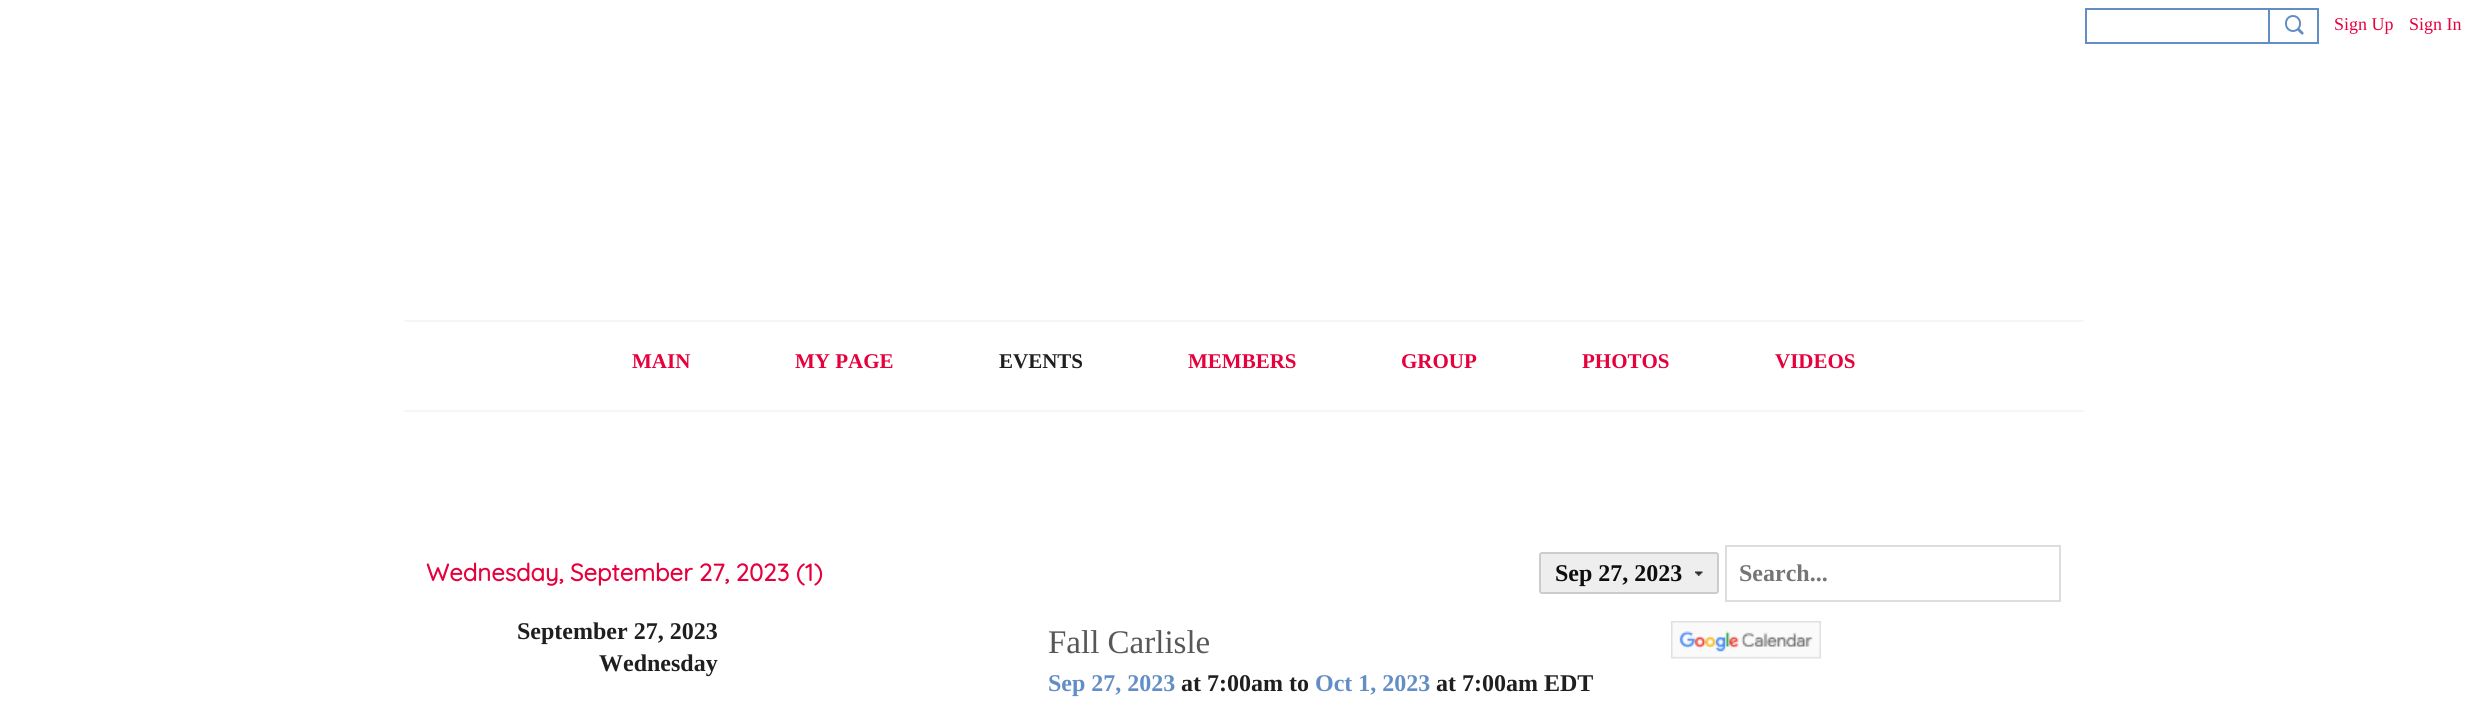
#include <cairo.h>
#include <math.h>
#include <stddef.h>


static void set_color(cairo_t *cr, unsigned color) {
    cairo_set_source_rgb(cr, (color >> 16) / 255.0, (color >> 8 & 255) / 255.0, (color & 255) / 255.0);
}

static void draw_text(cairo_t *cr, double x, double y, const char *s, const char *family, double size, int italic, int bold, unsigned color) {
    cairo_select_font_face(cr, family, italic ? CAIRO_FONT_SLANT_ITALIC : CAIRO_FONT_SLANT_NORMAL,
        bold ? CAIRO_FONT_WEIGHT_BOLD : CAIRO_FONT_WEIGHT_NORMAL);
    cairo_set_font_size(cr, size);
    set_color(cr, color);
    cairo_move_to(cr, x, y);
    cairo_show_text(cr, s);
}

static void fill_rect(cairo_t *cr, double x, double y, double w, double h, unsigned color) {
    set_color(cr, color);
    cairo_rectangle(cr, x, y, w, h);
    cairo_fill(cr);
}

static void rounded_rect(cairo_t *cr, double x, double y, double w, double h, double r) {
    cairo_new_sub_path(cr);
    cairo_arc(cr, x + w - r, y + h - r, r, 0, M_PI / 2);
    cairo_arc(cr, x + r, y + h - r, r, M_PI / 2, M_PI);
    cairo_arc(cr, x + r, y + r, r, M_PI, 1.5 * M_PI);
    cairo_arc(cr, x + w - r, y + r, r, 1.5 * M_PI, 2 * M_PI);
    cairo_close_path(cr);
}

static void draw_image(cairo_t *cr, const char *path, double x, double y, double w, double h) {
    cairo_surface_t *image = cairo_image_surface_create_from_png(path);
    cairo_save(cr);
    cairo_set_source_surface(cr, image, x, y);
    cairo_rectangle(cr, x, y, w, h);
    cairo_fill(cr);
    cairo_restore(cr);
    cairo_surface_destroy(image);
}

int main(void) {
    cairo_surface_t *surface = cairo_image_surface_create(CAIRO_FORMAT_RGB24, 2487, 711);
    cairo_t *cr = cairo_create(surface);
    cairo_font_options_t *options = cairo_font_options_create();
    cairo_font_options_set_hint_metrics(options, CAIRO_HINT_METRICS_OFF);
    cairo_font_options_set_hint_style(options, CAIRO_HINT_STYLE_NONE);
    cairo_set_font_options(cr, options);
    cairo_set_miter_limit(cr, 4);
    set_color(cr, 0xFFFFFF);
    cairo_paint(cr);
    cairo_rectangle(cr, 2086, 9, 183, 34);
    set_color(cr, 0x638EC5);
    cairo_stroke(cr);
    cairo_rectangle(cr, 2269, 9, 49, 34);
    cairo_stroke(cr);
    rounded_rect(cr, 2286, 16, 14, 15, 7);
    cairo_stroke(cr);
    cairo_new_path(cr);
    cairo_move_to(cr, 2300, 29);
    cairo_line_to(cr, 2303.5, 32.5);
    cairo_curve_to(cr, 2304, 33.5, 2303, 35, 2301.5, 34.5);
    cairo_line_to(cr, 2297.5, 30.5);
    cairo_curve_to(cr, 2297, 29, 2299, 27.5, 2300, 29);
    cairo_close_path(cr);
    cairo_fill(cr);
    draw_text(cr, 2334, 30, "Sign Up", "Liberation Serif", 18, 0, 0, 0xE6003C);
    draw_text(cr, 2409, 30, "Sign In", "Liberation Serif", 18, 0, 0, 0xE6003C);
    fill_rect(cr, 404, 320, 1680, 2, 0xF6F6F6);
    fill_rect(cr, 404, 410, 1680, 2, 0xF6F6F6);
    draw_text(cr, 632, 368, "MAIN", "Liberation Serif", 21, 0, 1, 0xE6003C);
    draw_text(cr, 795, 368, "MY PAGE", "Liberation Serif", 21, 0, 1, 0xE6003C);
    draw_text(cr, 999, 368, "EVENTS", "Liberation Serif", 21, 0, 1, 0x1F1F1F);
    draw_text(cr, 1188, 368, "MEMBERS", "Liberation Serif", 21, 0, 1, 0xE6003C);
    draw_text(cr, 1401, 368, "GROUP", "Liberation Serif", 21, 0, 1, 0xE6003C);
    draw_text(cr, 1582, 368, "PHOTOS", "Liberation Serif", 21, 0, 1, 0xE6003C);
    draw_text(cr, 1775, 368, "VIDEOS", "Liberation Serif", 21, 0, 1, 0xE6003C);
    draw_text(cr, 426, 581, "Wednesday, September 27, 2023 (1)", "Quicksand", 24, 0, 1, 0xE6003C);
    set_color(cr, 0xEEEEEE);
    rounded_rect(cr, 1540, 553, 178, 40, 2);
    cairo_fill_preserve(cr);
    set_color(cr, 0xCCCCCC);
    cairo_stroke(cr);
    draw_text(cr, 1555, 581, "Sep 27, 2023", "Liberation Serif", 24, 0, 1, 0x0D0D0D);
    draw_image(cr, "assets/img1.png", 1695, 571, 8, 5);
    cairo_rectangle(cr, 1726, 546, 334, 55);
    set_color(cr, 0xDDDDDD);
    cairo_stroke(cr);
    draw_text(cr, 1739, 581, "Search...", "Liberation Serif", 24, 0, 1, 0x757575);
    draw_text(cr, 517, 639, "September 27, 2023", "Liberation Serif", 24, 0, 1, 0x1F1F1F);
    draw_text(cr, 599, 671, "Wednesday", "Liberation Serif", 24, 0, 1, 0x1F1F1F);
    draw_text(cr, 1048, 653, "Fall Carlisle", "Liberation Serif", 33, 0, 0, 0x575757);
    draw_text(cr, 1048, 691, "Sep 27, 2023", "Liberation Serif", 24, 0, 1, 0x638EC5);
    draw_text(cr, 1181, 691, "at 7:00am to", "Liberation Serif", 24, 0, 1, 0x1F1F1F);
    draw_text(cr, 1315, 691, "Oct 1, 2023", "Liberation Serif", 24, 0, 1, 0x638EC5);
    draw_text(cr, 1436, 691, "at 7:00am EDT", "Liberation Serif", 24, 0, 1, 0x1F1F1F);
    draw_image(cr, "assets/img2.png", 1671, 621, 150, 38);
    cairo_surface_write_to_png(surface, "output.png");
    cairo_font_options_destroy(options);
    cairo_destroy(cr);
    cairo_surface_destroy(surface);
    return 0;
}
